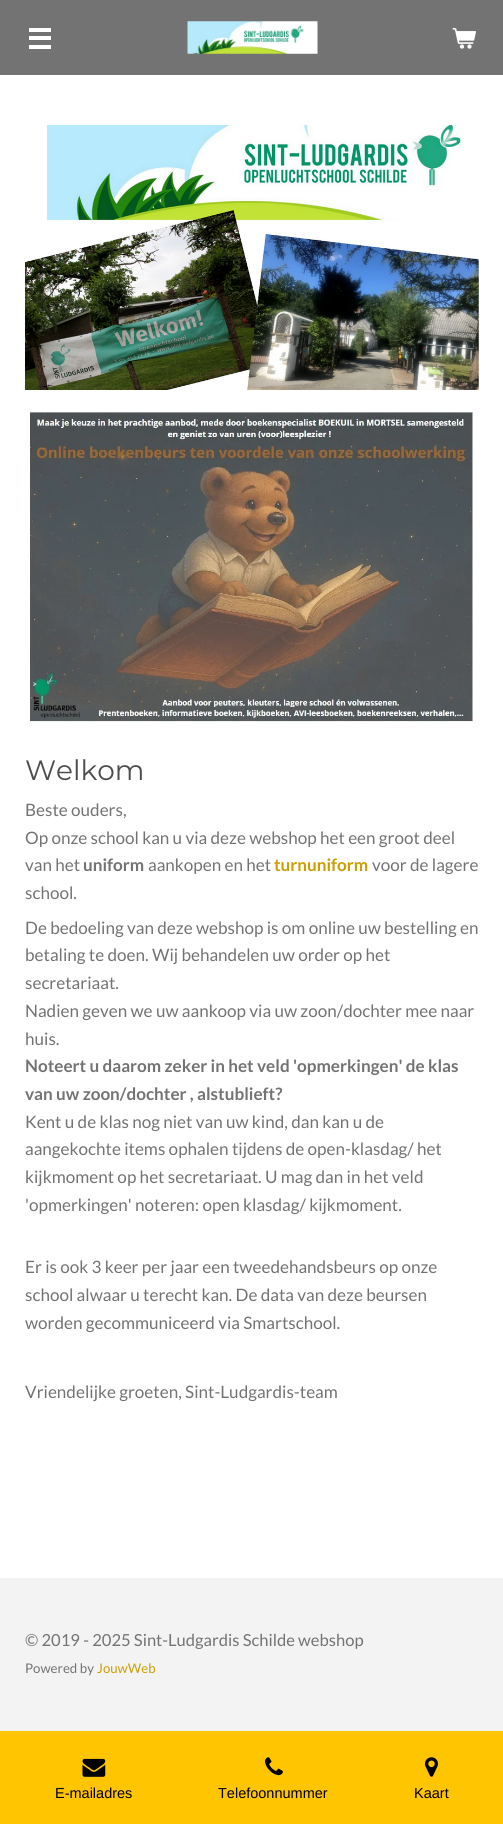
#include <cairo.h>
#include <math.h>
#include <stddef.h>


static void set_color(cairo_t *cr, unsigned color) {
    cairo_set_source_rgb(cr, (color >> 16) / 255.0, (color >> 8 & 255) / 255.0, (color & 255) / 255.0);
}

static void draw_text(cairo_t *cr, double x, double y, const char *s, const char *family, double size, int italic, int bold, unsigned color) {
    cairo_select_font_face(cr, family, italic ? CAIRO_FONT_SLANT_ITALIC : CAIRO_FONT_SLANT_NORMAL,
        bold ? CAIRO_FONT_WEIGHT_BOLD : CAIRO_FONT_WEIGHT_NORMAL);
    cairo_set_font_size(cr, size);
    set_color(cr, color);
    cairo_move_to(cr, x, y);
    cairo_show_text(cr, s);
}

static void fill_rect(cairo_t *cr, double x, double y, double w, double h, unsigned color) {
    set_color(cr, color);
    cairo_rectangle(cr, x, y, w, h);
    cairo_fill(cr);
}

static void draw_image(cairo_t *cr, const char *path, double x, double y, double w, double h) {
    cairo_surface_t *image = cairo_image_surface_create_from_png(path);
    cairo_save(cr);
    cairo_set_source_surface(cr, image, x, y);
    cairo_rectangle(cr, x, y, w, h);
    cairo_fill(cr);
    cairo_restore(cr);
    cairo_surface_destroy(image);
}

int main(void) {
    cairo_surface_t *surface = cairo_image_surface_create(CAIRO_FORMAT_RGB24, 503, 1824);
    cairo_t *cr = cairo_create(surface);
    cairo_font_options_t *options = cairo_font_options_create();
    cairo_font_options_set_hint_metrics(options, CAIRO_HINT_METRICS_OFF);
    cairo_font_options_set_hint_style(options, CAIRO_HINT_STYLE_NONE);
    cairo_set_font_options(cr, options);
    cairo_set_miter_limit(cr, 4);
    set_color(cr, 0xFFFFFF);
    cairo_paint(cr);
    fill_rect(cr, 0, 0, 503, 75, 0x737373);
    fill_rect(cr, 29, 36, 22, 4, 0xFFFFFF);
    fill_rect(cr, 29, 28, 22, 4, 0xFFFFFF);
    fill_rect(cr, 29, 45, 22, 4, 0xFFFFFF);
    draw_image(cr, "assets/img1.png", 187, 21, 131, 33);
    draw_image(cr, "assets/img2.png", 452, 27, 24, 22);
    draw_image(cr, "assets/img3.png", 25, 125, 454, 265);
    draw_image(cr, "assets/img4.png", 29, 412, 444, 311);
    draw_text(cr, 25, 780, "Welkom", "Montserrat", 28, 0, 0, 0x4D4D4D);
    draw_text(cr, 25, 816, "Beste ouders,", "Lato", 17.1, 0, 0, 0x737373);
    draw_text(cr, 25, 844, "Op onze school kan u via deze webshop het een groot deel", "Lato", 17.1, 0, 0, 0x737373);
    draw_text(cr, 25, 871, "van het", "Lato", 17.1, 0, 0, 0x737373);
    draw_text(cr, 83, 871, "uniform", "Lato", 17.1, 0, 1, 0x737373);
    draw_text(cr, 148, 871, "aankopen en het", "Lato", 17.1, 0, 0, 0x737373);
    draw_text(cr, 274, 871, "turnuniform", "Lato", 17.1, 0, 1, 0xCC9E00);
    draw_text(cr, 372, 871, "voor de lagere", "Lato", 17.1, 0, 0, 0x737373);
    draw_text(cr, 25, 899, "school.", "Lato", 17.1, 0, 0, 0x737373);
    draw_text(cr, 25, 934, "De bedoeling van deze webshop is om online uw bestelling en", "Lato", 17.1, 0, 0, 0x737373);
    draw_text(cr, 25, 961, "betaling te doen. Wij behandelen uw order op het", "Lato", 17.1, 0, 0, 0x737373);
    draw_text(cr, 25, 989, "secretariaat.", "Lato", 17.1, 0, 0, 0x737373);
    draw_text(cr, 25, 1017, "Nadien geven we uw aankoop via uw zoon/dochter mee naar", "Lato", 17.1, 0, 0, 0x737373);
    draw_text(cr, 25, 1045, "huis.", "Lato", 17.1, 0, 0, 0x737373);
    draw_text(cr, 25, 1072, "Noteert u daarom zeker in het veld 'opmerkingen' de klas", "Lato", 17.1, 0, 1, 0x737373);
    draw_text(cr, 25, 1100, "van uw zoon/dochter , alstublieft?", "Lato", 17.1, 0, 1, 0x737373);
    draw_text(cr, 25, 1128, "Kent u de klas nog niet van uw kind, dan kan u de", "Lato", 17.1, 0, 0, 0x737373);
    draw_text(cr, 25, 1155, "aangekochte items ophalen tijdens de open-klasdag/ het", "Lato", 17.1, 0, 0, 0x737373);
    draw_text(cr, 25, 1183, "kijkmoment op het secretariaat. U mag dan in het veld", "Lato", 17.1, 0, 0, 0x737373);
    draw_text(cr, 25, 1211, "'opmerkingen' noteren: open klasdag/ kijkmoment.", "Lato", 17.1, 0, 0, 0x737373);
    draw_text(cr, 25, 1273, "Er is ook 3 keer per jaar een tweedehandsbeurs op onze", "Lato", 17.1, 0, 0, 0x737373);
    draw_text(cr, 25, 1301, "school alwaar u terecht kan. De data van deze beursen", "Lato", 17.1, 0, 0, 0x737373);
    draw_text(cr, 25, 1329, "worden gecommuniceerd via Smartschool.", "Lato", 17.1, 0, 0, 0x737373);
    draw_text(cr, 25, 1398, "Vriendelijke groeten, Sint-Ludgardis-team", "Lato", 17.1, 0, 0, 0x737373);
    fill_rect(cr, 0, 1578, 503, 153, 0xF3F3F3);
    draw_text(cr, 25, 1646, "© 2019 - 2025 Sint-Ludgardis Schilde webshop", "Lato", 16.6, 0, 0, 0x737373);
    draw_text(cr, 25, 1673, "Powered by", "Lato", 13.25, 0, 0, 0x737373);
    draw_text(cr, 97, 1673, "JouwWeb", "Lato", 13.25, 0, 0, 0xCC9E00);
    fill_rect(cr, 0, 1731, 503, 93, 0xFFC500);
    draw_image(cr, "assets/img5.png", 82, 1758, 24, 19);
    draw_text(cr, 55, 1798, "E-mailadres", "Liberation Sans", 14.5, 0, 0, 0x000000);
    draw_image(cr, "assets/img6.png", 265, 1757, 18, 19);
    draw_text(cr, 218, 1798, "Telefoonnummer", "Liberation Sans", 14.5, 0, 0, 0x000000);
    draw_image(cr, "assets/img7.png", 425, 1757, 13, 20);
    draw_text(cr, 414, 1798, "Kaart", "Liberation Sans", 14.5, 0, 0, 0x000000);
    cairo_surface_write_to_png(surface, "output.png");
    cairo_font_options_destroy(options);
    cairo_destroy(cr);
    cairo_surface_destroy(surface);
    return 0;
}
